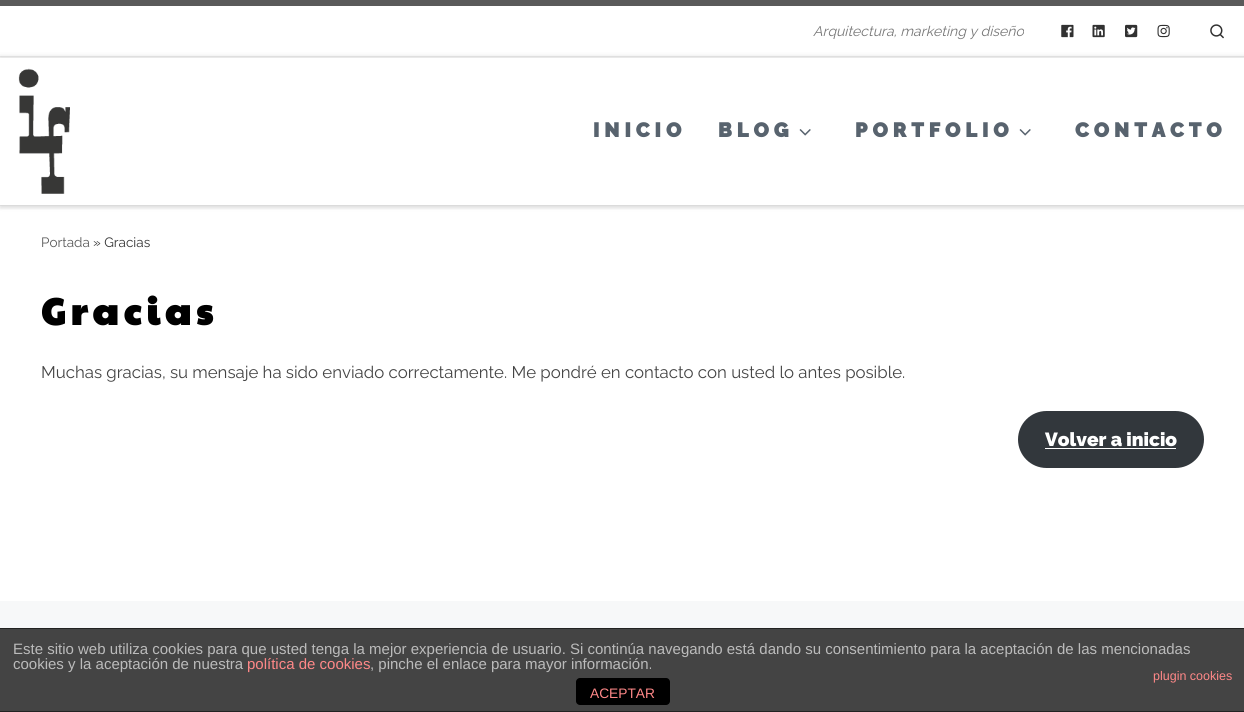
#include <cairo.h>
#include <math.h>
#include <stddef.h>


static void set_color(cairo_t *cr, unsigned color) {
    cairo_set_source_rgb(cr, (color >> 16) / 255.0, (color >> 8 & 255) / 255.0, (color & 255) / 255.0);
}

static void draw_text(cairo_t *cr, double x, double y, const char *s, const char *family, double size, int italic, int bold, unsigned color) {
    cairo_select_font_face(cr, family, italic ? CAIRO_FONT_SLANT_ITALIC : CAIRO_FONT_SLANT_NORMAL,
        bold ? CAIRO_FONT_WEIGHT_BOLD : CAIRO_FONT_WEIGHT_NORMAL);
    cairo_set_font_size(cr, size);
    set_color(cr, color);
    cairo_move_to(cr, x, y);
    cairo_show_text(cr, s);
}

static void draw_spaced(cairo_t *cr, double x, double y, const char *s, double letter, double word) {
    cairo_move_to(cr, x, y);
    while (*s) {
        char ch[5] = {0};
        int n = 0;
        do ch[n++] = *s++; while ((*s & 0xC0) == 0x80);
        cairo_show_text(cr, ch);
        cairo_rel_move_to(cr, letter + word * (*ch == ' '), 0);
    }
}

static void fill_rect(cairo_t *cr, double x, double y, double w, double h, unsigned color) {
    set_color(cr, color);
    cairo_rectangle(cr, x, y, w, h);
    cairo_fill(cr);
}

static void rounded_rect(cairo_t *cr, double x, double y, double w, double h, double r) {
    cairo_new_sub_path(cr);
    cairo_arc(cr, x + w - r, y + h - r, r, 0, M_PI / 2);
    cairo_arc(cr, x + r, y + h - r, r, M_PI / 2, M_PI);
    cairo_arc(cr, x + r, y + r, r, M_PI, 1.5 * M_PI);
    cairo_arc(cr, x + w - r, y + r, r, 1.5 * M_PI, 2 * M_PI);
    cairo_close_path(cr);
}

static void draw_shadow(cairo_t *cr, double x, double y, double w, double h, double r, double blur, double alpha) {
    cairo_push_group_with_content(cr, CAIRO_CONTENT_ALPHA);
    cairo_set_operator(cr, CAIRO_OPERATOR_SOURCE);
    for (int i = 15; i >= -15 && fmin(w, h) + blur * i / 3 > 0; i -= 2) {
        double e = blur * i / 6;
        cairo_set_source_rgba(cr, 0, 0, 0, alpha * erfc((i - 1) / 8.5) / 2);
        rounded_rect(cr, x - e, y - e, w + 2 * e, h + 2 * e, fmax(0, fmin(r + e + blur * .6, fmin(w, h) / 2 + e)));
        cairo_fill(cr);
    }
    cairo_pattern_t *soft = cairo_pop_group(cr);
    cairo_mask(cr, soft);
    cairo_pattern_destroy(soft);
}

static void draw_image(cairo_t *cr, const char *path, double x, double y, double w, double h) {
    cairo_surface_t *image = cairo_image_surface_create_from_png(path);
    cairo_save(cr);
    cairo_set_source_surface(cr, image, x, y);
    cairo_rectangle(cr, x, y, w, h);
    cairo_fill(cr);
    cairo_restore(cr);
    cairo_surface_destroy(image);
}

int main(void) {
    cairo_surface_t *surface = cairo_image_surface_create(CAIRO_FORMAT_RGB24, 1244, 712);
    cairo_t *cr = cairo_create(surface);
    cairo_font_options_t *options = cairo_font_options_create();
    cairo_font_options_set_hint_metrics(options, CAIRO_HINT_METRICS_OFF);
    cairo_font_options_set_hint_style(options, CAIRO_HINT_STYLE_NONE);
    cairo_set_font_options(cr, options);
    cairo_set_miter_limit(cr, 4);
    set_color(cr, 0xFFFFFF);
    cairo_paint(cr);
    cairo_save(cr);
    cairo_rectangle(cr, 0, 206, 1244, 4);
    cairo_clip(cr);
    set_color(cr, 0x666666);
    draw_shadow(cr, 0, 3, 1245, 206, 0, 1, 0.08);
    cairo_restore(cr);
    fill_rect(cr, 0, 0, 1244, 6, 0x5A5A5A);
    fill_rect(cr, 0, 56, 1244, 1, 0xECECEC);
    draw_text(cr, 813, 36, "Arquitectura, marketing y diseño", "Raleway Thin", 14, 1, 0, 0x777777);
    draw_image(cr, "assets/img1.png", 1061, 24, 13, 14);
    draw_image(cr, "assets/img2.png", 1092, 24, 13, 14);
    draw_image(cr, "assets/img3.png", 1125, 24, 13, 14);
    draw_image(cr, "assets/img4.png", 1157, 24, 13, 14);
    draw_image(cr, "assets/img5.png", 1210, 24, 14, 15);
    fill_rect(cr, 0, 205, 1244, 1, 0xEFEFEF);
    cairo_save(cr);
    cairo_set_fill_rule(cr, CAIRO_FILL_RULE_EVEN_ODD);
    cairo_new_path(cr);
    cairo_move_to(cr, 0, 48);
    cairo_line_to(cr, 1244, 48);
    cairo_line_to(cr, 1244, 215);
    cairo_line_to(cr, 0, 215);
    cairo_close_path(cr);
    cairo_move_to(cr, 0, 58);
    cairo_line_to(cr, 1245, 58);
    cairo_line_to(cr, 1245, 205);
    cairo_line_to(cr, 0, 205);
    cairo_close_path(cr);
    cairo_clip(cr);
    set_color(cr, 0x000000);
    draw_shadow(cr, 0, 58, 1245, 147, 0, 3, 0.2);
    cairo_restore(cr);
    draw_image(cr, "assets/img6.png", 18, 68, 52, 126);
    cairo_select_font_face(cr, "Raleway", CAIRO_FONT_SLANT_NORMAL, CAIRO_FONT_WEIGHT_BOLD);
    cairo_set_font_size(cr, 20);
    set_color(cr, 0x58636E);
    draw_spaced(cr, 593, 137, "INICIO", 5, 0);
    draw_spaced(cr, 718, 137, "BLOG", 5, 0);
    draw_image(cr, "assets/img7.png", 799, 129, 12, 7);
    draw_spaced(cr, 855, 137, "PORTFOLIO", 5, 0);
    draw_image(cr, "assets/img7.png", 1019, 129, 12, 7);
    draw_spaced(cr, 1075, 137, "CONTACTO", 5, 0);
    draw_text(cr, 41, 247, "Portada", "Raleway Thin", 13.5, 0, 0, 0x5A5A5A);
    draw_text(cr, 93, 247, "» Gracias", "Raleway Thin", 13.5, 0, 0, 0x333333);
    cairo_select_font_face(cr, "Paytone One", CAIRO_FONT_SLANT_NORMAL, CAIRO_FONT_WEIGHT_BOLD);
    cairo_set_font_size(cr, 37.5);
    set_color(cr, 0x000000);
    draw_spaced(cr, 41, 325, "Gracias", 5, 0);
    draw_text(cr, 41, 378, "Muchas gracias, su mensaje ha sido enviado correctamente. Me pondré en contacto con usted lo antes posible.", "Raleway Thin", 16.8, 0, 0, 0x444444);
    set_color(cr, 0x32373C);
    rounded_rect(cr, 1018, 411, 186, 57, 28.5);
    cairo_fill(cr);
    draw_text(cr, 1045, 446, "Volver a inicio", "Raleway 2 Thin", 19, 0, 0, 0xFFFFFF);
    fill_rect(cr, 1045, 448, 131, 1, 0xFFFFFF);
    fill_rect(cr, 0, 601, 1244, 27, 0xF7F8F9);
    fill_rect(cr, 0, 629, 1244, 82, 0x444444);
    fill_rect(cr, 0, 628, 1244, 1, 0x222222);
    fill_rect(cr, 0, 711, 1244, 1, 0x222222);
    draw_text(cr, 13, 654, "Este sitio web utiliza cookies para que usted tenga la mejor experiencia de usuario. Si continúa navegando está dando su consentimiento para la aceptación de las mencionadas", "Liberation Sans", 15, 0, 0, 0xBBBBBB);
    draw_text(cr, 13, 669, "cookies y la aceptación de nuestra", "Liberation Sans", 15, 0, 0, 0xBBBBBB);
    draw_text(cr, 247, 669, "política de cookies", "Liberation Sans", 15, 0, 0, 0xFF8888);
    draw_text(cr, 370, 669, ", pinche el enlace para mayor información.", "Liberation Sans", 15, 0, 0, 0xBBBBBB);
    draw_text(cr, 1153, 680, "plugin cookies", "Liberation Sans", 12.5, 0, 0, 0xFF8888);
    set_color(cr, 0x000000);
    rounded_rect(cr, 576, 678, 94, 27, 4);
    cairo_fill(cr);
    draw_text(cr, 590, 698, "ACEPTAR", "Liberation Sans", 13.75, 0, 0, 0xFF8888);
    cairo_surface_write_to_png(surface, "output.png");
    cairo_font_options_destroy(options);
    cairo_destroy(cr);
    cairo_surface_destroy(surface);
    return 0;
}
